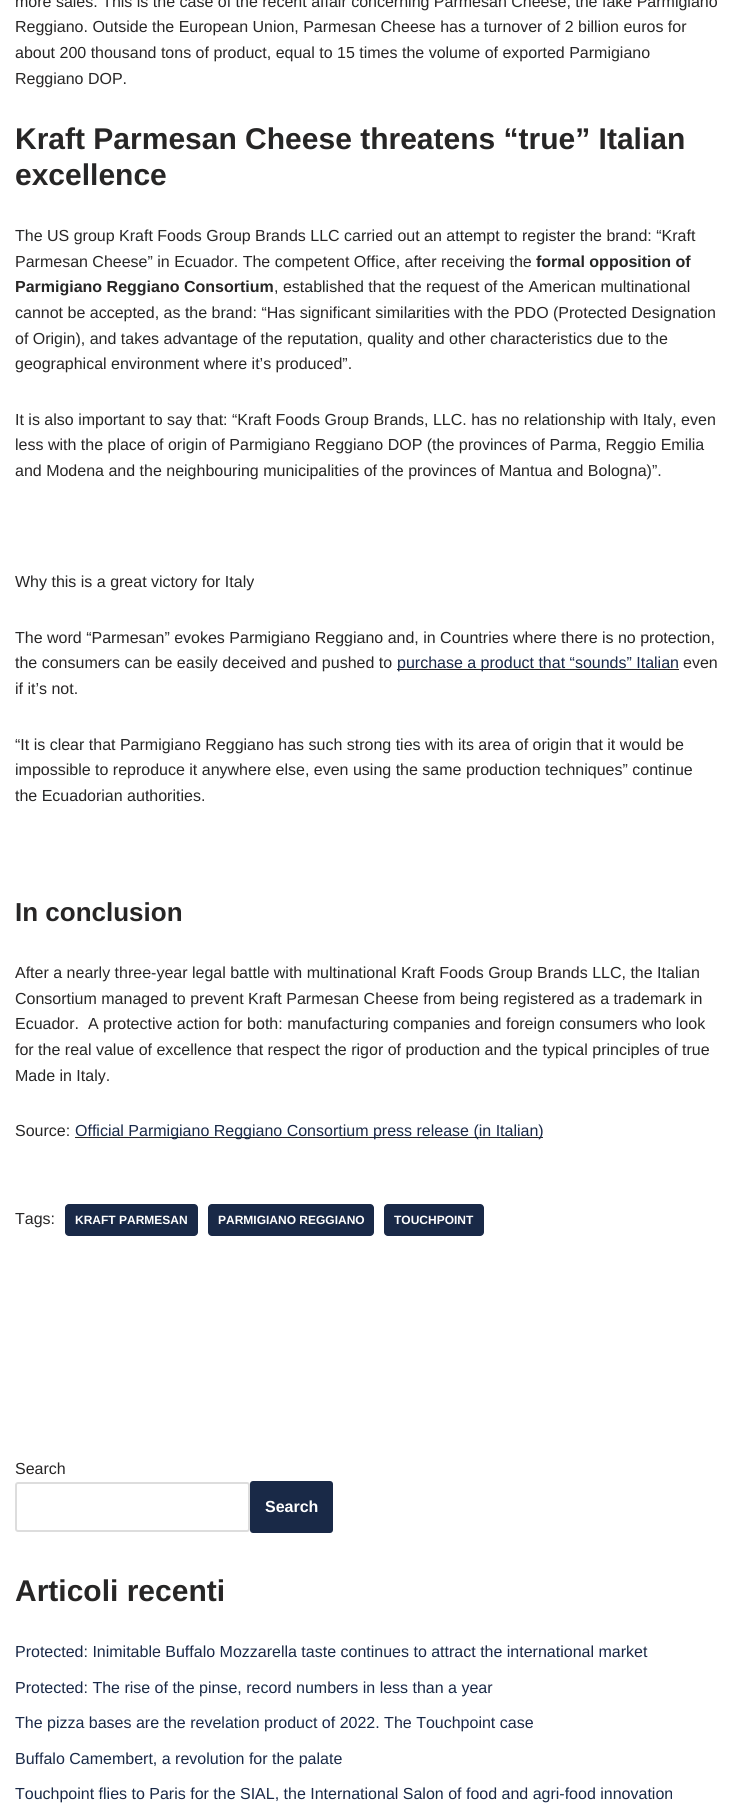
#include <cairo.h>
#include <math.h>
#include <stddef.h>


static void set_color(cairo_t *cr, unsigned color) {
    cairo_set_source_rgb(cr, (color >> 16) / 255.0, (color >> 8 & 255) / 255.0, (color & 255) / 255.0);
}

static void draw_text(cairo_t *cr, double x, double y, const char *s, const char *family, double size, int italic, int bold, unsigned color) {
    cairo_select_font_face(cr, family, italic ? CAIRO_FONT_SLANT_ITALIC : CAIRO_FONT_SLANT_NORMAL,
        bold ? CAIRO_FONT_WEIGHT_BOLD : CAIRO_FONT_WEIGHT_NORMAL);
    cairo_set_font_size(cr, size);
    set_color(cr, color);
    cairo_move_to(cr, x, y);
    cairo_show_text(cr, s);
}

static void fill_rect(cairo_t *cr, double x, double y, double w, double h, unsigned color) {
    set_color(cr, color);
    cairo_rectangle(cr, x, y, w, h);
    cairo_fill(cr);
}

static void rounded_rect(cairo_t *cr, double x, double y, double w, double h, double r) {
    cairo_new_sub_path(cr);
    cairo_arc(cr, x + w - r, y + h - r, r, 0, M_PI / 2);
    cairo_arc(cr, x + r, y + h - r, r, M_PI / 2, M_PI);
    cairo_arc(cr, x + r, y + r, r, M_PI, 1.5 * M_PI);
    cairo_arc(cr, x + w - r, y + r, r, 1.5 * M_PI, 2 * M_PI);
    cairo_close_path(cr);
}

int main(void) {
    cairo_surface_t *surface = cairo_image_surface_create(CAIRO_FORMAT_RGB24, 734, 1818);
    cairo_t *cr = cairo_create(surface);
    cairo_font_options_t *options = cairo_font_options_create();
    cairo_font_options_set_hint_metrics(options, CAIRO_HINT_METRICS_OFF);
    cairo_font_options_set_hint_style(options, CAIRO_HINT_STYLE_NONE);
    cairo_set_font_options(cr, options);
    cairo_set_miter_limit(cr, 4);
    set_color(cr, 0xFFFFFF);
    cairo_paint(cr);
    draw_text(cr, 15, 7, "more sales. This is the case of the recent affair concerning Parmesan Cheese, the fake Parmigiano", "Liberation Sans", 16, 0, 0, 0x272626);
    draw_text(cr, 15, 32, "Reggiano. Outside the European Union, Parmesan Cheese has a turnover of 2 billion euros for", "Liberation Sans", 16, 0, 0, 0x272626);
    draw_text(cr, 15, 58, "about 200 thousand tons of product, equal to 15 times the volume of exported Parmigiano", "Liberation Sans", 16, 0, 0, 0x272626);
    draw_text(cr, 15, 84, "Reggiano DOP.", "Liberation Sans", 16, 0, 0, 0x272626);
    draw_text(cr, 15, 149, "Kraft Parmesan Cheese threatens “true” Italian", "Liberation Sans", 30, 0, 1, 0x272626);
    draw_text(cr, 15, 185, "excellence", "Liberation Sans", 30, 0, 1, 0x272626);
    draw_text(cr, 15, 241, "The US group Kraft Foods Group Brands LLC carried out an attempt to register the brand: “Kraft", "Liberation Sans", 16, 0, 0, 0x272626);
    draw_text(cr, 15, 267, "Parmesan Cheese” in Ecuador. The competent Office, after receiving the", "Liberation Sans", 16, 0, 0, 0x272626);
    draw_text(cr, 536, 267, "formal opposition of", "Liberation Sans", 16, 0, 1, 0x272626);
    draw_text(cr, 15, 292, "Parmigiano Reggiano Consortium", "Liberation Sans", 16, 0, 1, 0x272626);
    draw_text(cr, 274, 292, ", established that the request of the American multinational", "Liberation Sans", 16, 0, 0, 0x272626);
    draw_text(cr, 15, 318, "cannot be accepted, as the brand: “Has significant similarities with the PDO (Protected Designation", "Liberation Sans", 16, 0, 0, 0x272626);
    draw_text(cr, 15, 344, "of Origin), and takes advantage of the reputation, quality and other characteristics due to the", "Liberation Sans", 16, 0, 0, 0x272626);
    draw_text(cr, 15, 369, "geographical environment where it’s produced”.", "Liberation Sans", 16, 0, 0, 0x272626);
    draw_text(cr, 15, 425, "It is also important to say that: “Kraft Foods Group Brands, LLC. has no relationship with Italy, even", "Liberation Sans", 16, 0, 0, 0x272626);
    draw_text(cr, 15, 450, "less with the place of origin of Parmigiano Reggiano DOP (the provinces of Parma, Reggio Emilia", "Liberation Sans", 16, 0, 0, 0x272626);
    draw_text(cr, 15, 476, "and Modena and the neighbouring municipalities of the provinces of Mantua and Bologna)”.", "Liberation Sans", 16, 0, 0, 0x272626);
    draw_text(cr, 15, 587, "Why this is a great victory for Italy", "Liberation Sans", 16, 0, 0, 0x272626);
    draw_text(cr, 15, 643, "The word “Parmesan” evokes Parmigiano Reggiano and, in Countries where there is no protection,", "Liberation Sans", 16, 0, 0, 0x272626);
    draw_text(cr, 15, 668, "the consumers can be easily deceived and pushed to", "Liberation Sans", 16, 0, 0, 0x272626);
    fill_rect(cr, 397, 669, 282, 1, 0x272626);
    draw_text(cr, 397, 668, "purchase a product that “sounds” Italian", "Liberation Sans", 16, 0, 0, 0x192947);
    draw_text(cr, 683, 668, "even", "Liberation Sans", 16, 0, 0, 0x272626);
    draw_text(cr, 15, 694, "if it’s not.", "Liberation Sans", 16, 0, 0, 0x272626);
    draw_text(cr, 15, 750, "“It is clear that Parmigiano Reggiano has such strong ties with its area of origin that it would be", "Liberation Sans", 16, 0, 0, 0x272626);
    draw_text(cr, 15, 775, "impossible to reproduce it anywhere else, even using the same production techniques” continue", "Liberation Sans", 16, 0, 0, 0x272626);
    draw_text(cr, 15, 801, "the Ecuadorian authorities.", "Liberation Sans", 16, 0, 0, 0x272626);
    draw_text(cr, 15, 921, "In conclusion", "Liberation Sans", 26, 0, 1, 0x272626);
    draw_text(cr, 15, 978, "After a nearly three-year legal battle with multinational Kraft Foods Group Brands LLC, the Italian", "Liberation Sans", 16, 0, 0, 0x272626);
    draw_text(cr, 15, 1004, "Consortium managed to prevent Kraft Parmesan Cheese from being registered as a trademark in", "Liberation Sans", 16, 0, 0, 0x272626);
    draw_text(cr, 15, 1029, "Ecuador.  A protective action for both: manufacturing companies and foreign consumers who look", "Liberation Sans", 16, 0, 0, 0x272626);
    draw_text(cr, 15, 1055, "for the real value of excellence that respect the rigor of production and the typical principles of true", "Liberation Sans", 16, 0, 0, 0x272626);
    draw_text(cr, 15, 1081, "Made in Italy.", "Liberation Sans", 16, 0, 0, 0x272626);
    draw_text(cr, 15, 1136, "Source:", "Liberation Sans", 16, 0, 0, 0x272626);
    fill_rect(cr, 75, 1137, 468, 1, 0x272626);
    draw_text(cr, 75, 1136, "Official Parmigiano Reggiano Consortium press release (in Italian)", "Liberation Sans", 16, 0, 0, 0x192947);
    draw_text(cr, 15, 1224, "Tags:", "Liberation Sans", 16, 0, 0, 0x272626);
    set_color(cr, 0x192947);
    rounded_rect(cr, 65, 1204, 133, 32, 4);
    cairo_fill(cr);
    draw_text(cr, 75, 1224, "KRAFT PARMESAN", "Liberation Sans", 12, 0, 1, 0xFFFFFF);
    set_color(cr, 0x192947);
    rounded_rect(cr, 208, 1204, 166, 32, 4);
    cairo_fill(cr);
    draw_text(cr, 218, 1224, "PARMIGIANO REGGIANO", "Liberation Sans", 12, 0, 1, 0xFFFFFF);
    set_color(cr, 0x192947);
    rounded_rect(cr, 384, 1204, 100, 32, 4);
    cairo_fill(cr);
    draw_text(cr, 394, 1224, "TOUCHPOINT", "Liberation Sans", 12, 0, 1, 0xFFFFFF);
    draw_text(cr, 15, 1474, "Search", "Liberation Sans", 16, 0, 0, 0x272626);
    rounded_rect(cr, 16, 1483, 233, 48, 2);
    set_color(cr, 0xDDDDDD);
    cairo_stroke(cr);
    set_color(cr, 0x192947);
    rounded_rect(cr, 250, 1481, 83, 52, 3);
    cairo_fill(cr);
    draw_text(cr, 265, 1512, "Search", "Liberation Sans", 16, 0, 1, 0xFFFFFF);
    draw_text(cr, 15, 1601, "Articoli recenti", "Liberation Sans", 30, 0, 1, 0x272626);
    draw_text(cr, 15, 1657, "Protected: Inimitable Buffalo Mozzarella taste continues to attract the international market", "Liberation Sans", 16, 0, 0, 0x192947);
    draw_text(cr, 15, 1693, "Protected: The rise of the pinse, record numbers in less than a year", "Liberation Sans", 16, 0, 0, 0x192947);
    draw_text(cr, 15, 1728, "The pizza bases are the revelation product of 2022. The Touchpoint case", "Liberation Sans", 16, 0, 0, 0x192947);
    draw_text(cr, 15, 1764, "Buffalo Camembert, a revolution for the palate", "Liberation Sans", 16, 0, 0, 0x192947);
    draw_text(cr, 15, 1799, "Touchpoint flies to Paris for the SIAL, the International Salon of food and agri-food innovation", "Liberation Sans", 16, 0, 0, 0x192947);
    cairo_surface_write_to_png(surface, "output.png");
    cairo_font_options_destroy(options);
    cairo_destroy(cr);
    cairo_surface_destroy(surface);
    return 0;
}
